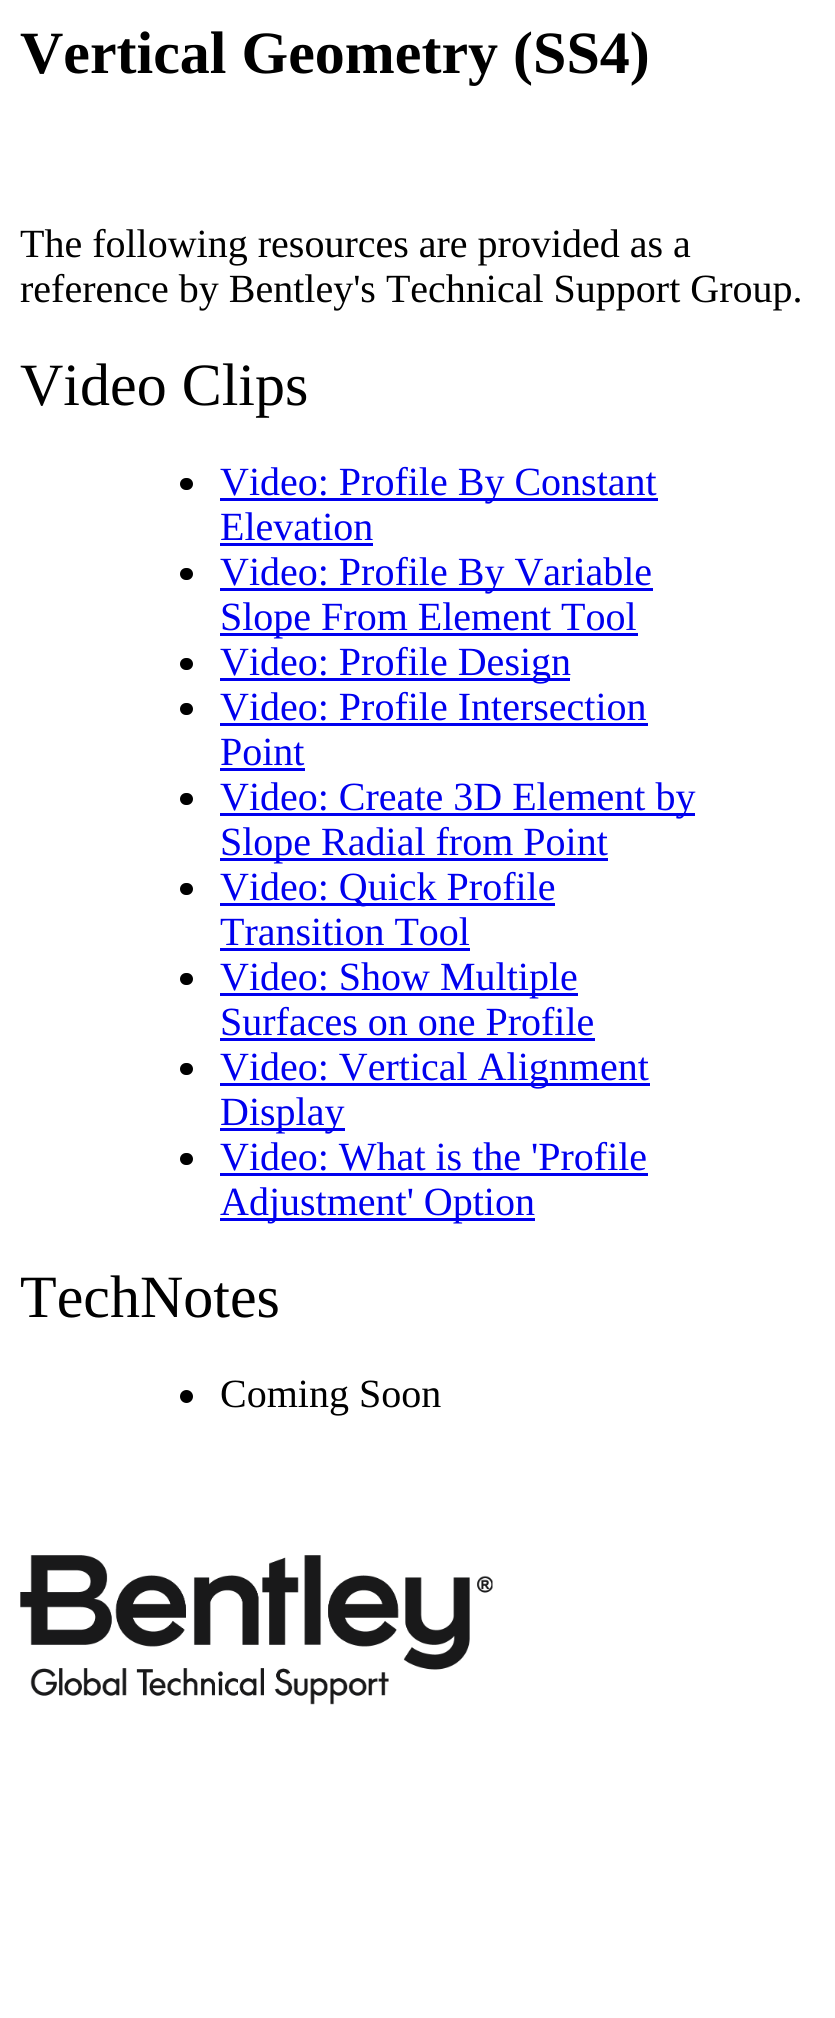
#include <cairo.h>
#include <math.h>
#include <stddef.h>


static void set_color(cairo_t *cr, unsigned color) {
    cairo_set_source_rgb(cr, (color >> 16) / 255.0, (color >> 8 & 255) / 255.0, (color & 255) / 255.0);
}

static void draw_text(cairo_t *cr, double x, double y, const char *s, const char *family, double size, int italic, int bold, unsigned color) {
    cairo_select_font_face(cr, family, italic ? CAIRO_FONT_SLANT_ITALIC : CAIRO_FONT_SLANT_NORMAL,
        bold ? CAIRO_FONT_WEIGHT_BOLD : CAIRO_FONT_WEIGHT_NORMAL);
    cairo_set_font_size(cr, size);
    set_color(cr, color);
    cairo_move_to(cr, x, y);
    cairo_show_text(cr, s);
}

static void fill_rect(cairo_t *cr, double x, double y, double w, double h, unsigned color) {
    set_color(cr, color);
    cairo_rectangle(cr, x, y, w, h);
    cairo_fill(cr);
}

static void rounded_rect(cairo_t *cr, double x, double y, double w, double h, double r) {
    cairo_new_sub_path(cr);
    cairo_arc(cr, x + w - r, y + h - r, r, 0, M_PI / 2);
    cairo_arc(cr, x + r, y + h - r, r, M_PI / 2, M_PI);
    cairo_arc(cr, x + r, y + r, r, M_PI, 1.5 * M_PI);
    cairo_arc(cr, x + w - r, y + r, r, 1.5 * M_PI, 2 * M_PI);
    cairo_close_path(cr);
}

static void draw_image(cairo_t *cr, const char *path, double x, double y, double w, double h) {
    cairo_surface_t *image = cairo_image_surface_create_from_png(path);
    cairo_save(cr);
    cairo_set_source_surface(cr, image, x, y);
    cairo_rectangle(cr, x, y, w, h);
    cairo_fill(cr);
    cairo_restore(cr);
    cairo_surface_destroy(image);
}

int main(void) {
    cairo_surface_t *surface = cairo_image_surface_create(CAIRO_FORMAT_RGB24, 835, 2018);
    cairo_t *cr = cairo_create(surface);
    cairo_font_options_t *options = cairo_font_options_create();
    cairo_font_options_set_hint_metrics(options, CAIRO_HINT_METRICS_OFF);
    cairo_font_options_set_hint_style(options, CAIRO_HINT_STYLE_NONE);
    cairo_set_font_options(cr, options);
    cairo_set_miter_limit(cr, 4);
    set_color(cr, 0xFFFFFF);
    cairo_paint(cr);
    draw_text(cr, 20, 73, "Vertical Geometry (SS4)", "Liberation Serif", 60, 0, 1, 0x000000);
    draw_text(cr, 20, 257, "The following resources are provided as a", "Liberation Serif", 40, 0, 0, 0x000000);
    draw_text(cr, 20, 302, "reference by Bentley's Technical Support Group.", "Liberation Serif", 40, 0, 0, 0x000000);
    draw_text(cr, 20, 405, "Video Clips", "Liberation Serif", 60, 0, 0, 0x000000);
    rounded_rect(cr, 180, 478, 13, 12, 6);
    cairo_fill(cr);
    fill_rect(cr, 220, 498, 438, 3, 0x0000EE);
    draw_text(cr, 220, 495, "Video: Profile By Constant", "Liberation Serif", 40, 0, 0, 0x0000EE);
    draw_text(cr, 220, 540, "Elevation", "Liberation Serif", 40, 0, 0, 0x0000EE);
    fill_rect(cr, 220, 543, 153, 3, 0x0000EE);
    set_color(cr, 0x000000);
    rounded_rect(cr, 180, 568, 13, 12, 6);
    cairo_fill(cr);
    fill_rect(cr, 220, 588, 433, 3, 0x0000EE);
    draw_text(cr, 220, 585, "Video: Profile By Variable", "Liberation Serif", 40, 0, 0, 0x0000EE);
    fill_rect(cr, 220, 633, 418, 3, 0x0000EE);
    draw_text(cr, 220, 630, "Slope From Element Tool", "Liberation Serif", 40, 0, 0, 0x0000EE);
    set_color(cr, 0x000000);
    rounded_rect(cr, 180, 658, 13, 12, 6);
    cairo_fill(cr);
    fill_rect(cr, 220, 678, 350, 3, 0x0000EE);
    draw_text(cr, 220, 675, "Video: Profile Design", "Liberation Serif", 40, 0, 0, 0x0000EE);
    set_color(cr, 0x000000);
    rounded_rect(cr, 180, 703, 13, 12, 6);
    cairo_fill(cr);
    draw_text(cr, 220, 720, "Video: Profile Intersection", "Liberation Serif", 40, 0, 0, 0x0000EE);
    fill_rect(cr, 220, 723, 428, 3, 0x0000EE);
    draw_text(cr, 220, 765, "Point", "Liberation Serif", 40, 0, 0, 0x0000EE);
    fill_rect(cr, 220, 768, 85, 3, 0x0000EE);
    set_color(cr, 0x000000);
    rounded_rect(cr, 180, 793, 13, 12, 6);
    cairo_fill(cr);
    fill_rect(cr, 220, 813, 475, 3, 0x0000EE);
    draw_text(cr, 220, 810, "Video: Create 3D Element by", "Liberation Serif", 40, 0, 0, 0x0000EE);
    fill_rect(cr, 220, 858, 388, 3, 0x0000EE);
    draw_text(cr, 220, 855, "Slope Radial from Point", "Liberation Serif", 40, 0, 0, 0x0000EE);
    set_color(cr, 0x000000);
    rounded_rect(cr, 180, 883, 13, 12, 6);
    cairo_fill(cr);
    fill_rect(cr, 220, 903, 335, 3, 0x0000EE);
    draw_text(cr, 220, 900, "Video: Quick Profile", "Liberation Serif", 40, 0, 0, 0x0000EE);
    draw_text(cr, 220, 945, "Transition Tool", "Liberation Serif", 40, 0, 0, 0x0000EE);
    fill_rect(cr, 220, 948, 250, 3, 0x0000EE);
    set_color(cr, 0x000000);
    rounded_rect(cr, 180, 973, 13, 12, 6);
    cairo_fill(cr);
    fill_rect(cr, 220, 993, 358, 3, 0x0000EE);
    draw_text(cr, 220, 990, "Video: Show Multiple", "Liberation Serif", 40, 0, 0, 0x0000EE);
    draw_text(cr, 220, 1035, "Surfaces on one Profile", "Liberation Serif", 40, 0, 0, 0x0000EE);
    fill_rect(cr, 220, 1038, 375, 3, 0x0000EE);
    set_color(cr, 0x000000);
    rounded_rect(cr, 180, 1063, 13, 12, 6);
    cairo_fill(cr);
    fill_rect(cr, 220, 1083, 430, 3, 0x0000EE);
    draw_text(cr, 220, 1080, "Video: Vertical Alignment", "Liberation Serif", 40, 0, 0, 0x0000EE);
    fill_rect(cr, 220, 1128, 125, 3, 0x0000EE);
    draw_text(cr, 220, 1125, "Display", "Liberation Serif", 40, 0, 0, 0x0000EE);
    set_color(cr, 0x000000);
    rounded_rect(cr, 180, 1153, 13, 12, 6);
    cairo_fill(cr);
    draw_text(cr, 220, 1170, "Video: What is the 'Profile", "Liberation Serif", 40, 0, 0, 0x0000EE);
    fill_rect(cr, 220, 1173, 428, 3, 0x0000EE);
    fill_rect(cr, 220, 1218, 315, 3, 0x0000EE);
    draw_text(cr, 220, 1215, "Adjustment' Option", "Liberation Serif", 40, 0, 0, 0x0000EE);
    draw_text(cr, 20, 1317, "TechNotes", "Liberation Serif", 60, 0, 0, 0x000000);
    cairo_new_path(cr);
    cairo_arc(cr, 186.5, 1396.5, 6.5, 0, 2 * M_PI);
    cairo_fill(cr);
    draw_text(cr, 220, 1407, "Coming Soon", "Liberation Serif", 40, 0, 0, 0x000000);
    draw_image(cr, "assets/img1.png", 20, 1555, 473, 150);
    cairo_surface_write_to_png(surface, "output.png");
    cairo_font_options_destroy(options);
    cairo_destroy(cr);
    cairo_surface_destroy(surface);
    return 0;
}
